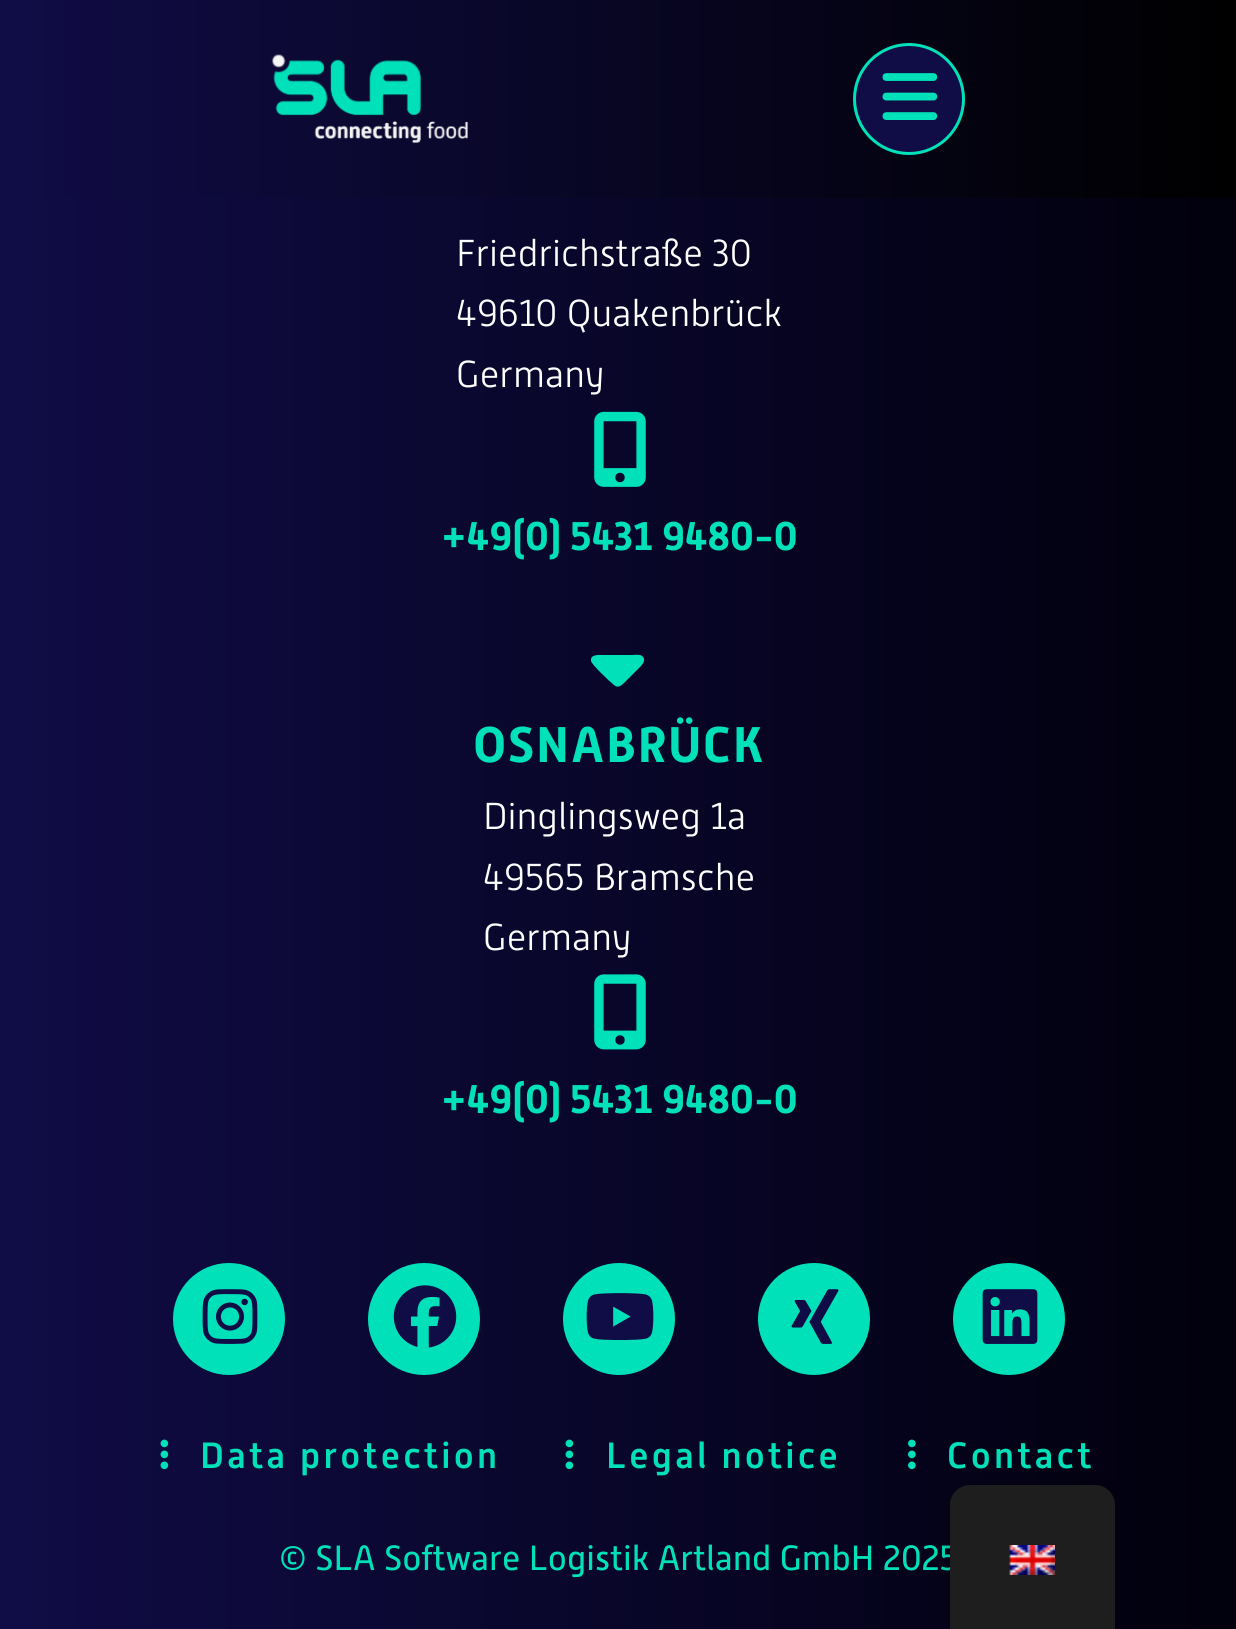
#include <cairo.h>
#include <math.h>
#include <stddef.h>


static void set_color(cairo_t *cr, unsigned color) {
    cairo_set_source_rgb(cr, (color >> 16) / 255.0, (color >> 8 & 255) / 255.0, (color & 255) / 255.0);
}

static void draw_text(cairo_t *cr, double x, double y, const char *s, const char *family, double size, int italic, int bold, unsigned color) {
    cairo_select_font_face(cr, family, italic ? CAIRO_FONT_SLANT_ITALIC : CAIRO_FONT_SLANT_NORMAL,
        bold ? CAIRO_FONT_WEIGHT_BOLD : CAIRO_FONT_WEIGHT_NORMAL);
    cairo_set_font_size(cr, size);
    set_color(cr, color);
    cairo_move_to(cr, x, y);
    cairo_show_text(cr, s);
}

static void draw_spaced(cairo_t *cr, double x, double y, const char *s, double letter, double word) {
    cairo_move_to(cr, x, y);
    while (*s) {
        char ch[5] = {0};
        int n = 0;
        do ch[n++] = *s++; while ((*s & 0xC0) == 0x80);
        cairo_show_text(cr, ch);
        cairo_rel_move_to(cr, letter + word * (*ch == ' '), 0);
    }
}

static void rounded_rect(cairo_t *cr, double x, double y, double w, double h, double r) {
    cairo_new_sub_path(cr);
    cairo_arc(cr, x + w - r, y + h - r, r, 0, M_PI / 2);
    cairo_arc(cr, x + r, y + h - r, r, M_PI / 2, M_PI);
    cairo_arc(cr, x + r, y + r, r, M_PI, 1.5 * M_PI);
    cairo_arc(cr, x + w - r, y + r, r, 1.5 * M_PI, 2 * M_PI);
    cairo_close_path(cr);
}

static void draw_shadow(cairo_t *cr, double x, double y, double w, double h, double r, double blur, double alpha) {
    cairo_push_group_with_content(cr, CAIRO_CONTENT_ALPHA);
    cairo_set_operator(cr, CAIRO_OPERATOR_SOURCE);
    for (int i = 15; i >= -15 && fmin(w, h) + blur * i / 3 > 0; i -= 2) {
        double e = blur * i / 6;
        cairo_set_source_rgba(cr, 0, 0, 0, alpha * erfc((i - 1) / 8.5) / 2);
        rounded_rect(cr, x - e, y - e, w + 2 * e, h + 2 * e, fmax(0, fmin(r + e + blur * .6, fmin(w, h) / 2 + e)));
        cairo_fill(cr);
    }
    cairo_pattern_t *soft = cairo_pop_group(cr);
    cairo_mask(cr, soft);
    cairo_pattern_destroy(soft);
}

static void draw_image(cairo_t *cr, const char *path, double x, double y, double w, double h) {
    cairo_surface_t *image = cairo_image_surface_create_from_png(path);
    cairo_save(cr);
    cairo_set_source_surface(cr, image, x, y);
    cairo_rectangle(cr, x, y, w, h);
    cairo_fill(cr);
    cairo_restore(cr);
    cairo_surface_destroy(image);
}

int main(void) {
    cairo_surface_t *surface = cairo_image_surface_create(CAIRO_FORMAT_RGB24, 1236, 1629);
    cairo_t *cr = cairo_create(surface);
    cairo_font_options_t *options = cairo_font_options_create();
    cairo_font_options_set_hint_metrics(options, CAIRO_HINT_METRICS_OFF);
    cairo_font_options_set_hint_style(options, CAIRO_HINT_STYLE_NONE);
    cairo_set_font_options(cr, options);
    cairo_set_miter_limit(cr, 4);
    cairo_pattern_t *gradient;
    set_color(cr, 0xFFFFFF);
    cairo_paint(cr);
    gradient = cairo_pattern_create_linear(0, 99, 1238, 99);
    cairo_pattern_add_color_stop_rgba(gradient, 0, 0.063, 0.047, 0.275, 1);
    cairo_pattern_add_color_stop_rgba(gradient, 1, 0, 0, 0, 1);
    cairo_set_source(cr, gradient);
    cairo_pattern_destroy(gradient);
    cairo_rectangle(cr, 0, 0, 1236, 198);
    cairo_fill(cr);
    draw_image(cr, "assets/img1.png", 271, 54, 197, 89);
    set_color(cr, 0x100C46);
    cairo_arc(cr, 909, 99, 54.5, 0, 2 * M_PI);
    cairo_fill_preserve(cr);
    set_color(cr, 0x00E1B9);
    cairo_set_line_width(cr, 3);
    cairo_stroke(cr);
    draw_image(cr, "assets/img2.png", 882, 73, 56, 47);
    gradient = cairo_pattern_create_linear(0, 465, 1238, 465);
    cairo_pattern_add_color_stop_rgba(gradient, 0, 0.063, 0.047, 0.275, 1);
    cairo_pattern_add_color_stop_rgba(gradient, 1, 0.004, 0, 0.047, 1);
    cairo_set_source(cr, gradient);
    cairo_pattern_destroy(gradient);
    cairo_rectangle(cr, 0, 198, 1236, 1431);
    cairo_fill(cr);
    draw_text(cr, 456, 266, "Friedrichstraße 30", "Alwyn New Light", 37.5, 0, 0, 0xFEFEFE);
    draw_text(cr, 456, 326, "49610 Quakenbrück", "Alwyn New Light", 37.5, 0, 0, 0xFEFEFE);
    draw_text(cr, 456, 387, "Germany", "Alwyn New Light", 37.5, 0, 0, 0xFEFEFE);
    draw_image(cr, "assets/img3.png", 594, 411, 52, 76);
    draw_text(cr, 441, 550, "+49(0) 5431 9480-0", "Alwyn New", 40, 0, 1, 0x00E1B9);
    cairo_new_path(cr);
    cairo_move_to(cr, 614, 685);
    cairo_curve_to(cr, 618, 689, 622, 685, 625, 682);
    cairo_line_to(cr, 639, 668);
    cairo_curve_to(cr, 642, 665, 647, 660, 642, 656);
    cairo_curve_to(cr, 640, 654, 634, 655, 632, 655);
    cairo_line_to(cr, 603, 655);
    cairo_curve_to(cr, 599, 655, 590, 654, 591, 661);
    cairo_curve_to(cr, 592, 665, 610, 682, 614, 685);
    cairo_close_path(cr);
    cairo_fill(cr);
    cairo_set_font_size(cr, 50);
    draw_spaced(cr, 473, 762, "OSNABRÜCK", 1.75, 0);
    draw_text(cr, 483, 829, "Dinglingsweg 1a", "Alwyn New Light", 37.5, 0, 0, 0xFEFEFE);
    draw_text(cr, 483, 890, "49565 Bramsche", "Alwyn New Light", 37.5, 0, 0, 0xFEFEFE);
    draw_text(cr, 483, 950, "Germany", "Alwyn New Light", 37.5, 0, 0, 0xFEFEFE);
    draw_image(cr, "assets/img4.png", 594, 974, 52, 76);
    draw_text(cr, 441, 1113, "+49(0) 5431 9480-0", "Alwyn New", 40, 0, 1, 0x00E1B9);
    cairo_new_path(cr);
    cairo_arc(cr, 229, 1319, 56, 0, 2 * M_PI);
    cairo_fill(cr);
    draw_image(cr, "assets/img5.png", 202, 1289, 56, 55);
    cairo_arc(cr, 424, 1319, 56, 0, 2 * M_PI);
    cairo_fill(cr);
    draw_image(cr, "assets/img6.png", 393, 1285, 64, 63);
    cairo_arc(cr, 619, 1319, 56, 0, 2 * M_PI);
    cairo_fill(cr);
    draw_image(cr, "assets/img7.png", 586, 1293, 68, 47);
    cairo_arc(cr, 814, 1319, 56, 0, 2 * M_PI);
    cairo_fill(cr);
    draw_image(cr, "assets/img8.png", 791, 1289, 48, 55);
    cairo_arc(cr, 1009, 1319, 56, 0, 2 * M_PI);
    cairo_fill(cr);
    draw_image(cr, "assets/img9.png", 982, 1289, 56, 55);
    draw_image(cr, "assets/img10.png", 160, 1439, 9, 31);
    cairo_select_font_face(cr, "Alwyn New Medium", CAIRO_FONT_SLANT_NORMAL, CAIRO_FONT_WEIGHT_NORMAL);
    cairo_set_font_size(cr, 36.5);
    draw_spaced(cr, 200, 1468, "Data protection", 3.25, 0);
    draw_image(cr, "assets/img11.png", 565, 1439, 9, 31);
    draw_spaced(cr, 606, 1468, "Legal notice", 3.25, 0);
    draw_image(cr, "assets/img12.png", 908, 1439, 8, 31);
    draw_spaced(cr, 947, 1468, "Contact", 3.25, 0);
    draw_text(cr, 279, 1570, "© SLA Software Logistik Artland GmbH 2025", "Alwyn New", 35, 0, 0, 0x00E1B9);
    set_color(cr, 0x000000);
    draw_shadow(cr, 950, 1485, 165, 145, 20, 10, 0.25);
    set_color(cr, 0x1E1E1E);
    cairo_new_path(cr);
    cairo_move_to(cr, 970, 1485);
    cairo_line_to(cr, 1095, 1485);
    cairo_curve_to(cr, 1106, 1485, 1115, 1494, 1115, 1505);
    cairo_line_to(cr, 1115, 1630);
    cairo_line_to(cr, 950, 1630);
    cairo_line_to(cr, 950, 1505);
    cairo_curve_to(cr, 950, 1494, 959, 1485, 970, 1485);
    cairo_close_path(cr);
    cairo_fill(cr);
    draw_image(cr, "assets/img13.png", 1009, 1545, 46, 30);
    cairo_surface_write_to_png(surface, "output.png");
    cairo_font_options_destroy(options);
    cairo_destroy(cr);
    cairo_surface_destroy(surface);
    return 0;
}
